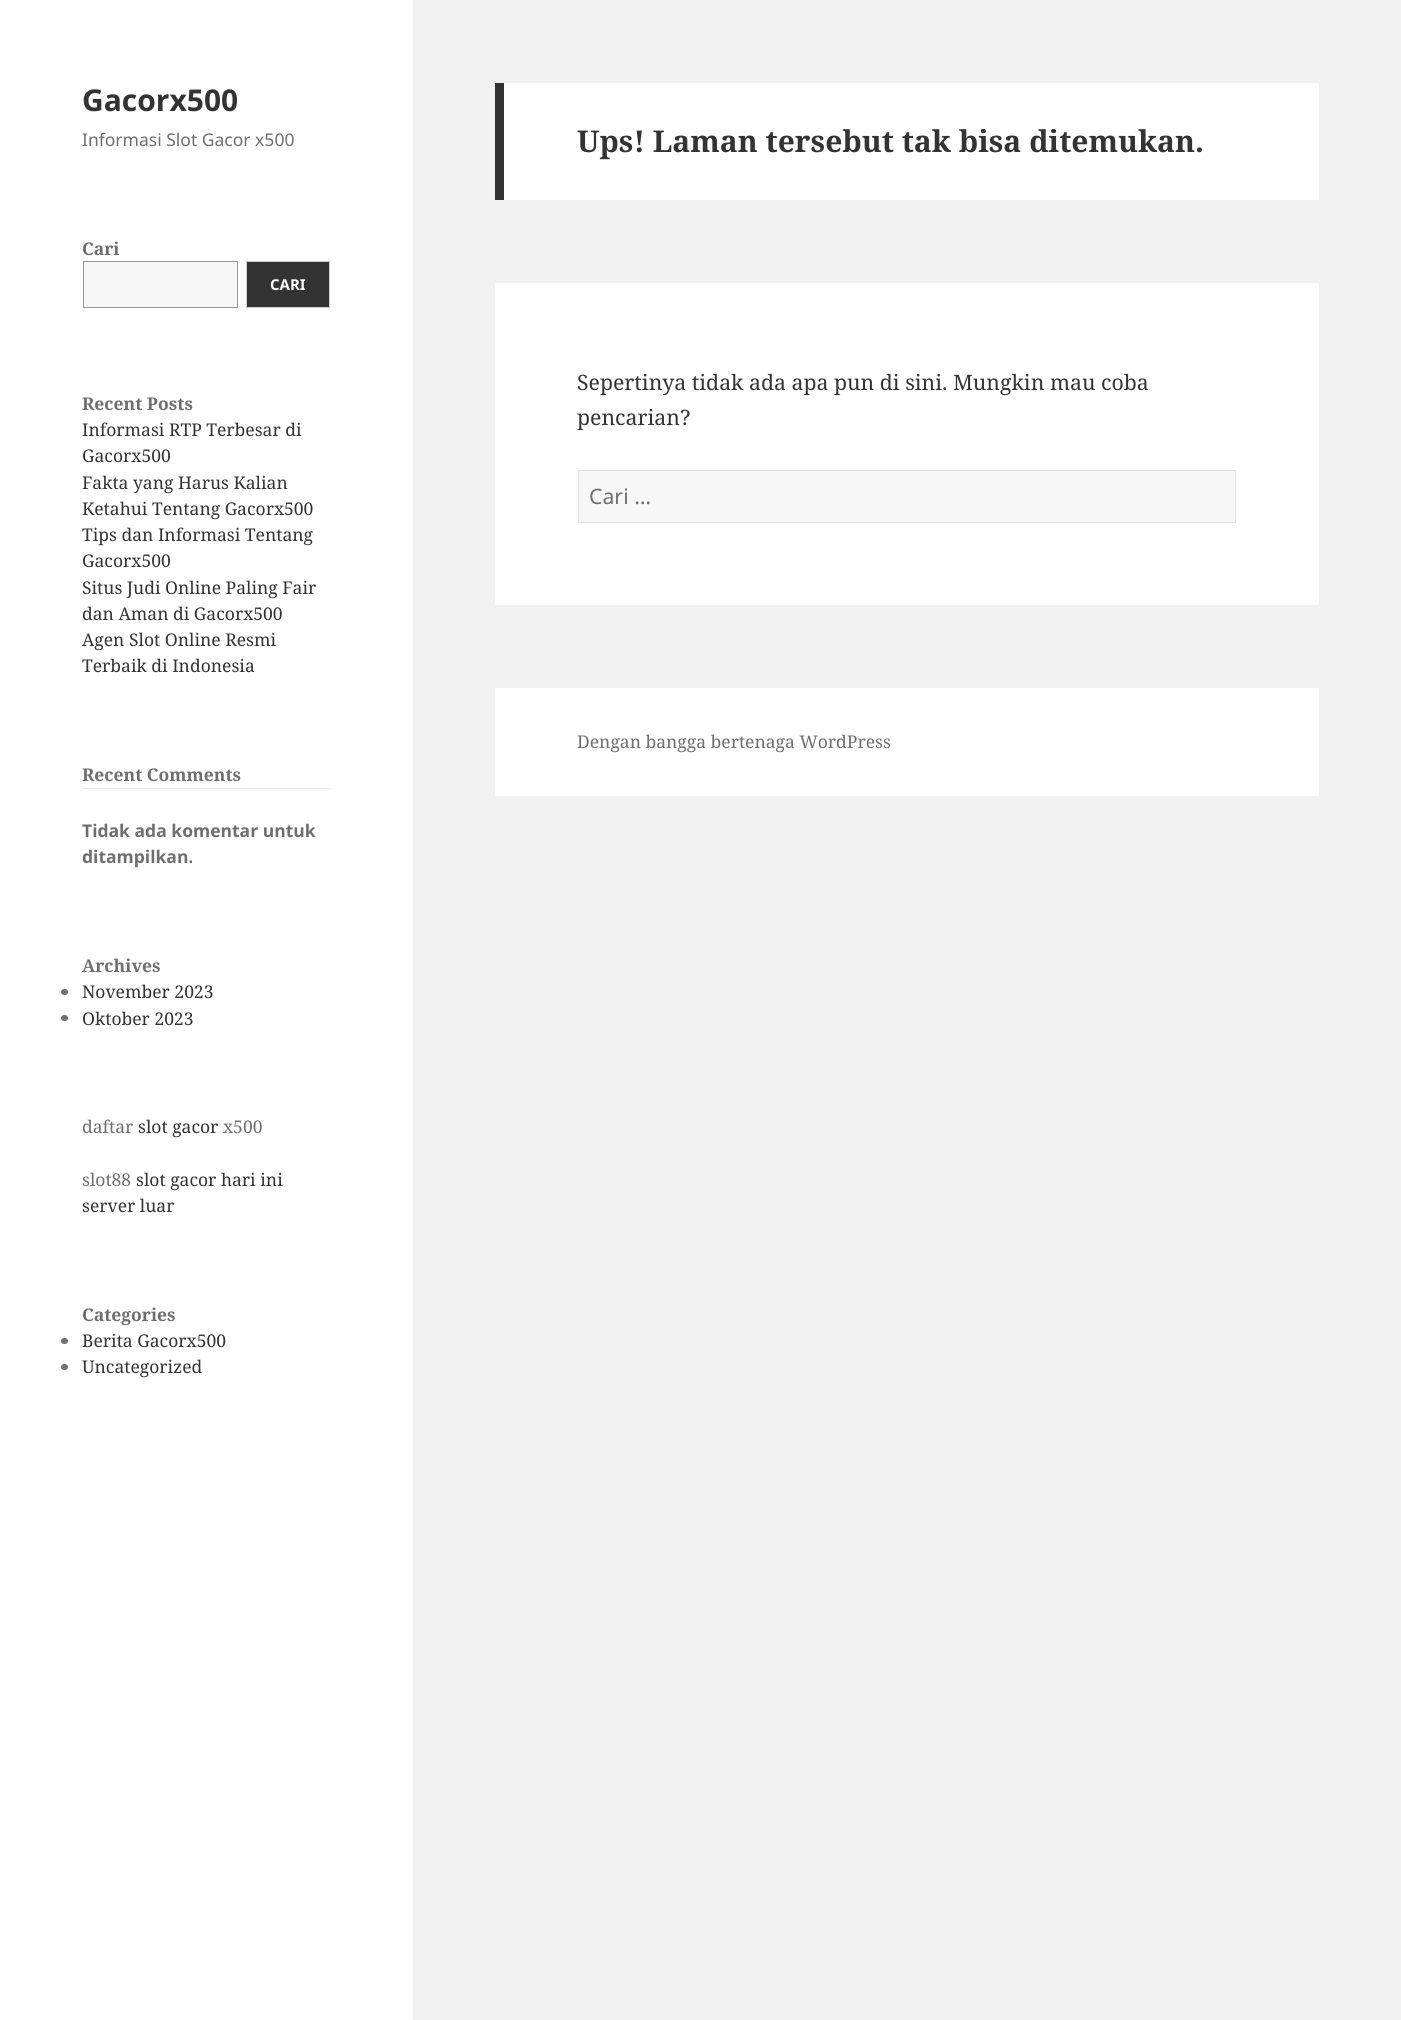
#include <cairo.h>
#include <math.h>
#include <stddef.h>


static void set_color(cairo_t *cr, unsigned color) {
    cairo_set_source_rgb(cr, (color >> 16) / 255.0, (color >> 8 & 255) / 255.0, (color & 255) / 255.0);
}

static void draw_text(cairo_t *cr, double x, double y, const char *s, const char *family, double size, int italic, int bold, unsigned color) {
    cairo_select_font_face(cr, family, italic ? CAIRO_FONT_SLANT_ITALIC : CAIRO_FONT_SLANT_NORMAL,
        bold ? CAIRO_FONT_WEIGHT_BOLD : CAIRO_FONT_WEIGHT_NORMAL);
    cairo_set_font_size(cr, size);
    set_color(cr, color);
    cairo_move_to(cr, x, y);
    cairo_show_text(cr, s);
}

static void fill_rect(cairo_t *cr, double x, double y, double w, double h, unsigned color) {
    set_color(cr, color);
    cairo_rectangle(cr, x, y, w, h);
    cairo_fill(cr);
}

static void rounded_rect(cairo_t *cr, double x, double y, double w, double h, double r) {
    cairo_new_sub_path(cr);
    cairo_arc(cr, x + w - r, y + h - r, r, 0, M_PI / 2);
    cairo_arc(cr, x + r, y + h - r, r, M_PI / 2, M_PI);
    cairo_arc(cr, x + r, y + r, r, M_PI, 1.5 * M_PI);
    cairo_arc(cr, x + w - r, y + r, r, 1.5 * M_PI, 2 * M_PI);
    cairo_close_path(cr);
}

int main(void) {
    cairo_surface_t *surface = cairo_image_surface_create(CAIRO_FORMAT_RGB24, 1401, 2020);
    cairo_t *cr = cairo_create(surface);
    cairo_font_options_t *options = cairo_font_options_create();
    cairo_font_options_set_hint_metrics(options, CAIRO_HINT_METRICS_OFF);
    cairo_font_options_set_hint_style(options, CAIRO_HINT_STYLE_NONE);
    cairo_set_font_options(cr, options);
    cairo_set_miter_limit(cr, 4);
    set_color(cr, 0xF1F1F1);
    cairo_paint(cr);
    fill_rect(cr, 0, 0, 413, 2020, 0xFFFFFF);
    draw_text(cr, 82, 111, "Gacorx500", "Noto Sans", 30, 0, 1, 0x333333);
    draw_text(cr, 82, 146, "Informasi Slot Gacor x500", "Noto Sans", 17.5, 0, 0, 0x6E6E6E);
    draw_text(cr, 82, 255, "Cari", "Noto Serif", 17.5, 0, 1, 0x6E6E6E);
    set_color(cr, 0xF7F7F7);
    cairo_rectangle(cr, 83.5, 261.5, 154, 46);
    cairo_fill_preserve(cr);
    set_color(cr, 0x949494);
    cairo_set_line_width(cr, 1);
    cairo_stroke(cr);
    set_color(cr, 0x333333);
    cairo_rectangle(cr, 246.5, 261.5, 83, 46);
    cairo_fill_preserve(cr);
    set_color(cr, 0xCCCCCC);
    cairo_stroke(cr);
    draw_text(cr, 270, 290, "CARI", "Noto Sans", 15, 0, 1, 0xFFFFFF);
    draw_text(cr, 82, 410, "Recent Posts", "Noto Serif", 17.5, 0, 1, 0x6E6E6E);
    draw_text(cr, 82, 436, "Informasi RTP Terbesar di", "Noto Serif", 17.5, 0, 0, 0x333333);
    draw_text(cr, 82, 462, "Gacorx500", "Noto Serif", 17.5, 0, 0, 0x333333);
    draw_text(cr, 82, 489, "Fakta yang Harus Kalian", "Noto Serif", 17.5, 0, 0, 0x333333);
    draw_text(cr, 82, 515, "Ketahui Tentang Gacorx500", "Noto Serif", 17.5, 0, 0, 0x333333);
    draw_text(cr, 82, 541, "Tips dan Informasi Tentang", "Noto Serif", 17.5, 0, 0, 0x333333);
    draw_text(cr, 82, 567, "Gacorx500", "Noto Serif", 17.5, 0, 0, 0x333333);
    draw_text(cr, 82, 594, "Situs Judi Online Paling Fair", "Noto Serif", 17.5, 0, 0, 0x333333);
    draw_text(cr, 82, 620, "dan Aman di Gacorx500", "Noto Serif", 17.5, 0, 0, 0x333333);
    draw_text(cr, 82, 646, "Agen Slot Online Resmi", "Noto Serif", 17.5, 0, 0, 0x333333);
    draw_text(cr, 82, 672, "Terbaik di Indonesia", "Noto Serif", 17.5, 0, 0, 0x333333);
    draw_text(cr, 82, 781, "Recent Comments", "Noto Serif", 17.5, 0, 1, 0x6E6E6E);
    fill_rect(cr, 83, 788, 247, 1, 0xEBEBEB);
    draw_text(cr, 82, 837, "Tidak ada komentar untuk", "Noto Sans", 17.5, 0, 1, 0x6E6E6E);
    draw_text(cr, 82, 863, "ditampilkan.", "Noto Sans", 17.5, 0, 1, 0x6E6E6E);
    draw_text(cr, 82, 972, "Archives", "Noto Serif", 17.5, 0, 1, 0x6E6E6E);
    set_color(cr, 0x707070);
    rounded_rect(cr, 61, 989, 7, 6, 3);
    cairo_fill(cr);
    draw_text(cr, 82, 998, "November 2023", "Noto Serif", 17.5, 0, 0, 0x333333);
    set_color(cr, 0x707070);
    rounded_rect(cr, 61, 1015, 7, 6, 3);
    cairo_fill(cr);
    draw_text(cr, 82, 1025, "Oktober 2023", "Noto Serif", 17.5, 0, 0, 0x333333);
    draw_text(cr, 82, 1133, "daftar", "Noto Serif", 17.5, 0, 0, 0x6E6E6E);
    draw_text(cr, 138, 1133, "slot gacor", "Noto Serif", 17.5, 0, 0, 0x333333);
    draw_text(cr, 223, 1133, "x500", "Noto Serif", 17.5, 0, 0, 0x6E6E6E);
    draw_text(cr, 82, 1186, "slot88", "Noto Serif", 17.5, 0, 0, 0x6E6E6E);
    draw_text(cr, 136, 1186, "slot gacor hari ini", "Noto Serif", 17.5, 0, 0, 0x333333);
    draw_text(cr, 82, 1212, "server luar", "Noto Serif", 17.5, 0, 0, 0x333333);
    draw_text(cr, 82, 1321, "Categories", "Noto Serif", 17.5, 0, 1, 0x6E6E6E);
    set_color(cr, 0x707070);
    rounded_rect(cr, 61, 1338, 7, 6, 3);
    cairo_fill(cr);
    draw_text(cr, 82, 1347, "Berita Gacorx500", "Noto Serif", 17.5, 0, 0, 0x333333);
    set_color(cr, 0x707070);
    rounded_rect(cr, 61, 1364, 7, 6, 3);
    cairo_fill(cr);
    draw_text(cr, 82, 1373, "Uncategorized", "Noto Serif", 17.5, 0, 0, 0x333333);
    fill_rect(cr, 504, 83, 815, 117, 0xFFFFFF);
    fill_rect(cr, 495, 83, 9, 117, 0x333333);
    draw_text(cr, 577, 152, "Ups! Laman tersebut tak bisa ditemukan.", "Noto Serif", 30, 0, 1, 0x333333);
    fill_rect(cr, 495, 283, 824, 322, 0xFFFFFF);
    draw_text(cr, 577, 390, "Sepertinya tidak ada apa pun di sini. Mungkin mau coba", "Noto Serif", 21.25, 0, 0, 0x333333);
    draw_text(cr, 577, 425, "pencarian?", "Noto Serif", 21.25, 0, 0, 0x333333);
    set_color(cr, 0xF7F7F7);
    cairo_rectangle(cr, 578.5, 470.5, 657, 52);
    cairo_fill_preserve(cr);
    set_color(cr, 0xE3E3E3);
    cairo_stroke(cr);
    draw_text(cr, 589, 504, "Cari …", "Noto Sans", 21.25, 0, 0, 0x6E6E6E);
    fill_rect(cr, 495, 688, 824, 108, 0xFFFFFF);
    draw_text(cr, 577, 748, "Dengan bangga bertenaga WordPress", "Noto Serif", 17.5, 0, 0, 0x6E6E6E);
    cairo_surface_write_to_png(surface, "output.png");
    cairo_font_options_destroy(options);
    cairo_destroy(cr);
    cairo_surface_destroy(surface);
    return 0;
}
